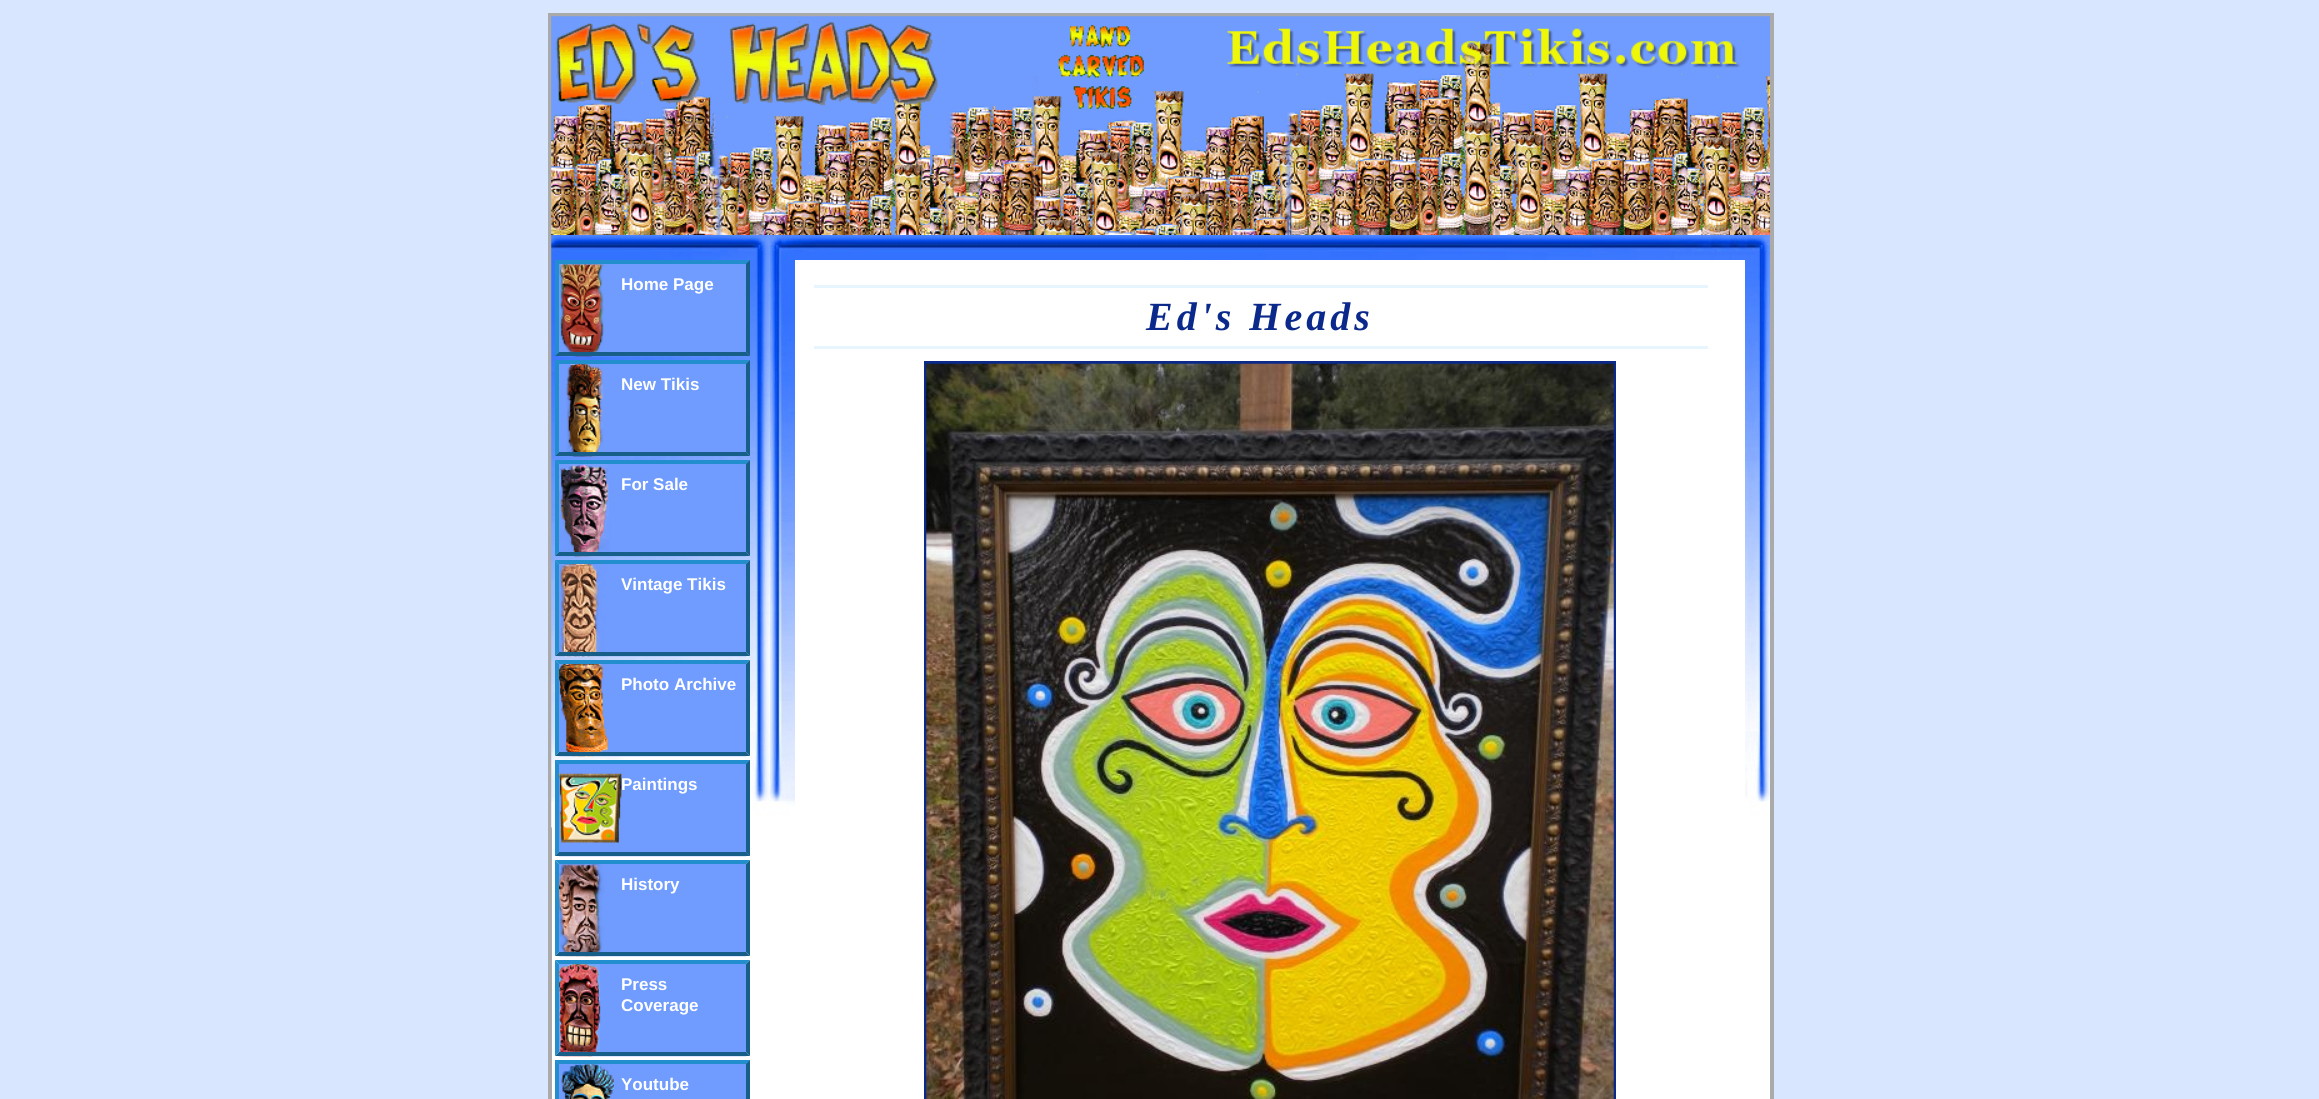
#include <cairo.h>
#include <math.h>
#include <stddef.h>


static void set_color(cairo_t *cr, unsigned color) {
    cairo_set_source_rgb(cr, (color >> 16) / 255.0, (color >> 8 & 255) / 255.0, (color & 255) / 255.0);
}

static void draw_text(cairo_t *cr, double x, double y, const char *s, const char *family, double size, int italic, int bold, unsigned color) {
    cairo_select_font_face(cr, family, italic ? CAIRO_FONT_SLANT_ITALIC : CAIRO_FONT_SLANT_NORMAL,
        bold ? CAIRO_FONT_WEIGHT_BOLD : CAIRO_FONT_WEIGHT_NORMAL);
    cairo_set_font_size(cr, size);
    set_color(cr, color);
    cairo_move_to(cr, x, y);
    cairo_show_text(cr, s);
}

static void draw_spaced(cairo_t *cr, double x, double y, const char *s, double letter, double word) {
    cairo_move_to(cr, x, y);
    while (*s) {
        char ch[5] = {0};
        int n = 0;
        do ch[n++] = *s++; while ((*s & 0xC0) == 0x80);
        cairo_show_text(cr, ch);
        cairo_rel_move_to(cr, letter + word * (*ch == ' '), 0);
    }
}

static void fill_rect(cairo_t *cr, double x, double y, double w, double h, unsigned color) {
    set_color(cr, color);
    cairo_rectangle(cr, x, y, w, h);
    cairo_fill(cr);
}

static void draw_image(cairo_t *cr, const char *path, double x, double y, double w, double h) {
    cairo_surface_t *image = cairo_image_surface_create_from_png(path);
    cairo_save(cr);
    cairo_set_source_surface(cr, image, x, y);
    cairo_rectangle(cr, x, y, w, h);
    cairo_fill(cr);
    cairo_restore(cr);
    cairo_surface_destroy(image);
}

int main(void) {
    cairo_surface_t *surface = cairo_image_surface_create(CAIRO_FORMAT_RGB24, 2319, 1099);
    cairo_t *cr = cairo_create(surface);
    cairo_font_options_t *options = cairo_font_options_create();
    cairo_font_options_set_hint_metrics(options, CAIRO_HINT_METRICS_OFF);
    cairo_font_options_set_hint_style(options, CAIRO_HINT_STYLE_NONE);
    cairo_set_font_options(cr, options);
    cairo_set_miter_limit(cr, 4);
    set_color(cr, 0xD9E6FF);
    cairo_paint(cr);
    fill_rect(cr, 552, 816, 1218, 283, 0xFFFFFF);
    cairo_rectangle(cr, 550, 15, 1222, 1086);
    set_color(cr, 0xAAAAAA);
    cairo_set_line_width(cr, 4);
    cairo_stroke(cr);
    draw_image(cr, "assets/img1.png", 551, 16, 1219, 219);
    draw_image(cr, "assets/img2.png", 551, 235, 219, 593);
    draw_image(cr, "assets/img3.png", 558, 263, 188, 94);
    set_color(cr, 0x228ECD);
    cairo_new_path(cr);
    cairo_move_to(cr, 555, 260);
    cairo_line_to(cr, 750, 260);
    cairo_line_to(cr, 746, 264);
    cairo_line_to(cr, 559, 264);
    cairo_close_path(cr);
    cairo_fill(cr);
    set_color(cr, 0x175F89);
    cairo_new_path(cr);
    cairo_move_to(cr, 750, 260);
    cairo_line_to(cr, 750, 356);
    cairo_line_to(cr, 746, 352);
    cairo_line_to(cr, 746, 264);
    cairo_close_path(cr);
    cairo_fill(cr);
    cairo_new_path(cr);
    cairo_move_to(cr, 750, 356);
    cairo_line_to(cr, 555, 356);
    cairo_line_to(cr, 559, 352);
    cairo_line_to(cr, 746, 352);
    cairo_close_path(cr);
    cairo_fill(cr);
    set_color(cr, 0x228ECD);
    cairo_new_path(cr);
    cairo_move_to(cr, 555, 356);
    cairo_line_to(cr, 555, 260);
    cairo_line_to(cr, 559, 264);
    cairo_line_to(cr, 559, 352);
    cairo_close_path(cr);
    cairo_fill(cr);
    draw_text(cr, 621, 290, "Home Page", "Liberation Sans", 17, 0, 1, 0xFFFFFF);
    draw_image(cr, "assets/img4.png", 559, 364, 187, 93);
    set_color(cr, 0x228ECD);
    cairo_new_path(cr);
    cairo_move_to(cr, 555, 360);
    cairo_line_to(cr, 750, 360);
    cairo_line_to(cr, 746, 364);
    cairo_line_to(cr, 559, 364);
    cairo_close_path(cr);
    cairo_fill(cr);
    set_color(cr, 0x175F89);
    cairo_new_path(cr);
    cairo_move_to(cr, 750, 360);
    cairo_line_to(cr, 750, 456);
    cairo_line_to(cr, 746, 452);
    cairo_line_to(cr, 746, 364);
    cairo_close_path(cr);
    cairo_fill(cr);
    cairo_new_path(cr);
    cairo_move_to(cr, 750, 456);
    cairo_line_to(cr, 555, 456);
    cairo_line_to(cr, 559, 452);
    cairo_line_to(cr, 746, 452);
    cairo_close_path(cr);
    cairo_fill(cr);
    set_color(cr, 0x228ECD);
    cairo_new_path(cr);
    cairo_move_to(cr, 555, 456);
    cairo_line_to(cr, 555, 360);
    cairo_line_to(cr, 559, 364);
    cairo_line_to(cr, 559, 452);
    cairo_close_path(cr);
    cairo_fill(cr);
    draw_text(cr, 621, 390, "New Tikis", "Liberation Sans", 17, 0, 1, 0xFFFFFF);
    draw_image(cr, "assets/img5.png", 559, 464, 188, 93);
    set_color(cr, 0x228ECD);
    cairo_new_path(cr);
    cairo_move_to(cr, 555, 460);
    cairo_line_to(cr, 750, 460);
    cairo_line_to(cr, 746, 464);
    cairo_line_to(cr, 559, 464);
    cairo_close_path(cr);
    cairo_fill(cr);
    set_color(cr, 0x175F89);
    cairo_new_path(cr);
    cairo_move_to(cr, 750, 460);
    cairo_line_to(cr, 750, 556);
    cairo_line_to(cr, 746, 552);
    cairo_line_to(cr, 746, 464);
    cairo_close_path(cr);
    cairo_fill(cr);
    cairo_new_path(cr);
    cairo_move_to(cr, 750, 556);
    cairo_line_to(cr, 555, 556);
    cairo_line_to(cr, 559, 552);
    cairo_line_to(cr, 746, 552);
    cairo_close_path(cr);
    cairo_fill(cr);
    set_color(cr, 0x228ECD);
    cairo_new_path(cr);
    cairo_move_to(cr, 555, 556);
    cairo_line_to(cr, 555, 460);
    cairo_line_to(cr, 559, 464);
    cairo_line_to(cr, 559, 552);
    cairo_close_path(cr);
    cairo_fill(cr);
    draw_text(cr, 621, 490, "For Sale", "Liberation Sans", 17, 0, 1, 0xFFFFFF);
    draw_image(cr, "assets/img6.png", 558, 563, 189, 94);
    set_color(cr, 0x228ECD);
    cairo_new_path(cr);
    cairo_move_to(cr, 555, 560);
    cairo_line_to(cr, 750, 560);
    cairo_line_to(cr, 746, 564);
    cairo_line_to(cr, 559, 564);
    cairo_close_path(cr);
    cairo_fill(cr);
    set_color(cr, 0x175F89);
    cairo_new_path(cr);
    cairo_move_to(cr, 750, 560);
    cairo_line_to(cr, 750, 656);
    cairo_line_to(cr, 746, 652);
    cairo_line_to(cr, 746, 564);
    cairo_close_path(cr);
    cairo_fill(cr);
    cairo_new_path(cr);
    cairo_move_to(cr, 750, 656);
    cairo_line_to(cr, 555, 656);
    cairo_line_to(cr, 559, 652);
    cairo_line_to(cr, 746, 652);
    cairo_close_path(cr);
    cairo_fill(cr);
    set_color(cr, 0x228ECD);
    cairo_new_path(cr);
    cairo_move_to(cr, 555, 656);
    cairo_line_to(cr, 555, 560);
    cairo_line_to(cr, 559, 564);
    cairo_line_to(cr, 559, 652);
    cairo_close_path(cr);
    cairo_fill(cr);
    draw_text(cr, 621, 590, "Vintage Tikis", "Liberation Sans", 17, 0, 1, 0xFFFFFF);
    draw_image(cr, "assets/img7.png", 558, 663, 189, 94);
    set_color(cr, 0x228ECD);
    cairo_new_path(cr);
    cairo_move_to(cr, 555, 660);
    cairo_line_to(cr, 750, 660);
    cairo_line_to(cr, 746, 664);
    cairo_line_to(cr, 559, 664);
    cairo_close_path(cr);
    cairo_fill(cr);
    set_color(cr, 0x175F89);
    cairo_new_path(cr);
    cairo_move_to(cr, 750, 660);
    cairo_line_to(cr, 750, 756);
    cairo_line_to(cr, 746, 752);
    cairo_line_to(cr, 746, 664);
    cairo_close_path(cr);
    cairo_fill(cr);
    cairo_new_path(cr);
    cairo_move_to(cr, 750, 756);
    cairo_line_to(cr, 555, 756);
    cairo_line_to(cr, 559, 752);
    cairo_line_to(cr, 746, 752);
    cairo_close_path(cr);
    cairo_fill(cr);
    set_color(cr, 0x228ECD);
    cairo_new_path(cr);
    cairo_move_to(cr, 555, 756);
    cairo_line_to(cr, 555, 660);
    cairo_line_to(cr, 559, 664);
    cairo_line_to(cr, 559, 752);
    cairo_close_path(cr);
    cairo_fill(cr);
    draw_text(cr, 621, 690, "Photo Archive", "Liberation Sans", 17, 0, 1, 0xFFFFFF);
    fill_rect(cr, 555, 760, 195, 96, 0x709BFF);
    draw_image(cr, "assets/img8.png", 558, 773, 189, 84);
    set_color(cr, 0x228ECD);
    cairo_new_path(cr);
    cairo_move_to(cr, 555, 760);
    cairo_line_to(cr, 750, 760);
    cairo_line_to(cr, 746, 764);
    cairo_line_to(cr, 559, 764);
    cairo_close_path(cr);
    cairo_fill(cr);
    set_color(cr, 0x175F89);
    cairo_new_path(cr);
    cairo_move_to(cr, 750, 760);
    cairo_line_to(cr, 750, 856);
    cairo_line_to(cr, 746, 852);
    cairo_line_to(cr, 746, 764);
    cairo_close_path(cr);
    cairo_fill(cr);
    cairo_new_path(cr);
    cairo_move_to(cr, 750, 856);
    cairo_line_to(cr, 555, 856);
    cairo_line_to(cr, 559, 852);
    cairo_line_to(cr, 746, 852);
    cairo_close_path(cr);
    cairo_fill(cr);
    set_color(cr, 0x228ECD);
    cairo_new_path(cr);
    cairo_move_to(cr, 555, 856);
    cairo_line_to(cr, 555, 760);
    cairo_line_to(cr, 559, 764);
    cairo_line_to(cr, 559, 852);
    cairo_close_path(cr);
    cairo_fill(cr);
    draw_text(cr, 621, 790, "Paintings", "Liberation Sans", 17, 0, 1, 0xFFFFFF);
    draw_image(cr, "assets/img9.png", 558, 863, 189, 94);
    set_color(cr, 0x228ECD);
    cairo_new_path(cr);
    cairo_move_to(cr, 555, 860);
    cairo_line_to(cr, 750, 860);
    cairo_line_to(cr, 746, 864);
    cairo_line_to(cr, 559, 864);
    cairo_close_path(cr);
    cairo_fill(cr);
    set_color(cr, 0x175F89);
    cairo_new_path(cr);
    cairo_move_to(cr, 750, 860);
    cairo_line_to(cr, 750, 956);
    cairo_line_to(cr, 746, 952);
    cairo_line_to(cr, 746, 864);
    cairo_close_path(cr);
    cairo_fill(cr);
    cairo_new_path(cr);
    cairo_move_to(cr, 750, 956);
    cairo_line_to(cr, 555, 956);
    cairo_line_to(cr, 559, 952);
    cairo_line_to(cr, 746, 952);
    cairo_close_path(cr);
    cairo_fill(cr);
    set_color(cr, 0x228ECD);
    cairo_new_path(cr);
    cairo_move_to(cr, 555, 956);
    cairo_line_to(cr, 555, 860);
    cairo_line_to(cr, 559, 864);
    cairo_line_to(cr, 559, 952);
    cairo_close_path(cr);
    cairo_fill(cr);
    draw_text(cr, 621, 890, "History", "Liberation Sans", 17, 0, 1, 0xFFFFFF);
    draw_image(cr, "assets/img10.png", 558, 963, 189, 94);
    set_color(cr, 0x228ECD);
    cairo_new_path(cr);
    cairo_move_to(cr, 555, 960);
    cairo_line_to(cr, 750, 960);
    cairo_line_to(cr, 746, 964);
    cairo_line_to(cr, 559, 964);
    cairo_close_path(cr);
    cairo_fill(cr);
    set_color(cr, 0x175F89);
    cairo_new_path(cr);
    cairo_move_to(cr, 750, 960);
    cairo_line_to(cr, 750, 1056);
    cairo_line_to(cr, 746, 1052);
    cairo_line_to(cr, 746, 964);
    cairo_close_path(cr);
    cairo_fill(cr);
    cairo_new_path(cr);
    cairo_move_to(cr, 750, 1056);
    cairo_line_to(cr, 555, 1056);
    cairo_line_to(cr, 559, 1052);
    cairo_line_to(cr, 746, 1052);
    cairo_close_path(cr);
    cairo_fill(cr);
    set_color(cr, 0x228ECD);
    cairo_new_path(cr);
    cairo_move_to(cr, 555, 1056);
    cairo_line_to(cr, 555, 960);
    cairo_line_to(cr, 559, 964);
    cairo_line_to(cr, 559, 1052);
    cairo_close_path(cr);
    cairo_fill(cr);
    draw_text(cr, 621, 990, "Press", "Liberation Sans", 17, 0, 1, 0xFFFFFF);
    draw_text(cr, 621, 1011, "Coverage", "Liberation Sans", 17, 0, 1, 0xFFFFFF);
    fill_rect(cr, 555, 1060, 195, 39, 0x709BFF);
    draw_image(cr, "assets/img11.png", 561, 1064, 53, 35);
    set_color(cr, 0x228ECD);
    cairo_new_path(cr);
    cairo_move_to(cr, 555, 1060);
    cairo_line_to(cr, 750, 1060);
    cairo_line_to(cr, 746, 1064);
    cairo_line_to(cr, 559, 1064);
    cairo_close_path(cr);
    cairo_fill(cr);
    set_color(cr, 0x175F89);
    cairo_new_path(cr);
    cairo_move_to(cr, 750, 1060);
    cairo_line_to(cr, 750, 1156);
    cairo_line_to(cr, 746, 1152);
    cairo_line_to(cr, 746, 1064);
    cairo_close_path(cr);
    cairo_fill(cr);
    set_color(cr, 0x228ECD);
    cairo_new_path(cr);
    cairo_move_to(cr, 555, 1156);
    cairo_line_to(cr, 555, 1060);
    cairo_line_to(cr, 559, 1064);
    cairo_line_to(cr, 559, 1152);
    cairo_close_path(cr);
    cairo_fill(cr);
    draw_text(cr, 621, 1090, "Youtube", "Liberation Sans", 17, 0, 1, 0xFFFFFF);
    draw_image(cr, "assets/img12.png", 770, 235, 1000, 582);
    fill_rect(cr, 795, 260, 950, 557, 0xFFFFFF);
    fill_rect(cr, 814, 285, 894, 3, 0xE7F5FF);
    fill_rect(cr, 814, 346, 894, 3, 0xE7F5FF);
    cairo_select_font_face(cr, "Liberation Serif", CAIRO_FONT_SLANT_ITALIC, CAIRO_FONT_WEIGHT_BOLD);
    cairo_set_font_size(cr, 40);
    set_color(cr, 0x0B298B);
    draw_spaced(cr, 1146, 330, "Ed's Heads", 4, 0);
    cairo_rectangle(cr, 925.5, 362.5, 689, 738);
    cairo_set_line_width(cr, 3);
    cairo_stroke(cr);
    draw_image(cr, "assets/img13.png", 926, 363, 688, 736);
    cairo_surface_write_to_png(surface, "output.png");
    cairo_font_options_destroy(options);
    cairo_destroy(cr);
    cairo_surface_destroy(surface);
    return 0;
}
